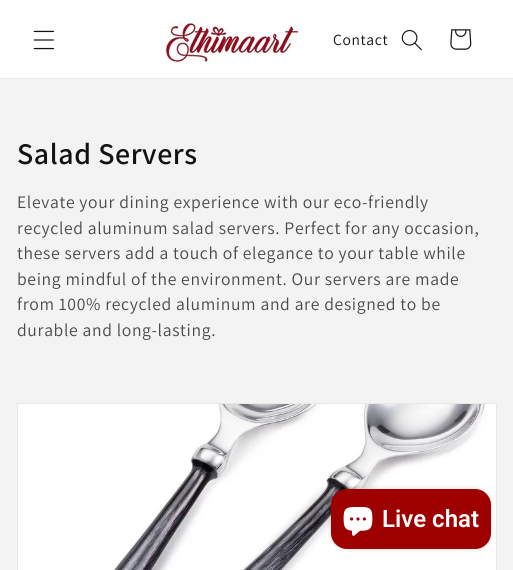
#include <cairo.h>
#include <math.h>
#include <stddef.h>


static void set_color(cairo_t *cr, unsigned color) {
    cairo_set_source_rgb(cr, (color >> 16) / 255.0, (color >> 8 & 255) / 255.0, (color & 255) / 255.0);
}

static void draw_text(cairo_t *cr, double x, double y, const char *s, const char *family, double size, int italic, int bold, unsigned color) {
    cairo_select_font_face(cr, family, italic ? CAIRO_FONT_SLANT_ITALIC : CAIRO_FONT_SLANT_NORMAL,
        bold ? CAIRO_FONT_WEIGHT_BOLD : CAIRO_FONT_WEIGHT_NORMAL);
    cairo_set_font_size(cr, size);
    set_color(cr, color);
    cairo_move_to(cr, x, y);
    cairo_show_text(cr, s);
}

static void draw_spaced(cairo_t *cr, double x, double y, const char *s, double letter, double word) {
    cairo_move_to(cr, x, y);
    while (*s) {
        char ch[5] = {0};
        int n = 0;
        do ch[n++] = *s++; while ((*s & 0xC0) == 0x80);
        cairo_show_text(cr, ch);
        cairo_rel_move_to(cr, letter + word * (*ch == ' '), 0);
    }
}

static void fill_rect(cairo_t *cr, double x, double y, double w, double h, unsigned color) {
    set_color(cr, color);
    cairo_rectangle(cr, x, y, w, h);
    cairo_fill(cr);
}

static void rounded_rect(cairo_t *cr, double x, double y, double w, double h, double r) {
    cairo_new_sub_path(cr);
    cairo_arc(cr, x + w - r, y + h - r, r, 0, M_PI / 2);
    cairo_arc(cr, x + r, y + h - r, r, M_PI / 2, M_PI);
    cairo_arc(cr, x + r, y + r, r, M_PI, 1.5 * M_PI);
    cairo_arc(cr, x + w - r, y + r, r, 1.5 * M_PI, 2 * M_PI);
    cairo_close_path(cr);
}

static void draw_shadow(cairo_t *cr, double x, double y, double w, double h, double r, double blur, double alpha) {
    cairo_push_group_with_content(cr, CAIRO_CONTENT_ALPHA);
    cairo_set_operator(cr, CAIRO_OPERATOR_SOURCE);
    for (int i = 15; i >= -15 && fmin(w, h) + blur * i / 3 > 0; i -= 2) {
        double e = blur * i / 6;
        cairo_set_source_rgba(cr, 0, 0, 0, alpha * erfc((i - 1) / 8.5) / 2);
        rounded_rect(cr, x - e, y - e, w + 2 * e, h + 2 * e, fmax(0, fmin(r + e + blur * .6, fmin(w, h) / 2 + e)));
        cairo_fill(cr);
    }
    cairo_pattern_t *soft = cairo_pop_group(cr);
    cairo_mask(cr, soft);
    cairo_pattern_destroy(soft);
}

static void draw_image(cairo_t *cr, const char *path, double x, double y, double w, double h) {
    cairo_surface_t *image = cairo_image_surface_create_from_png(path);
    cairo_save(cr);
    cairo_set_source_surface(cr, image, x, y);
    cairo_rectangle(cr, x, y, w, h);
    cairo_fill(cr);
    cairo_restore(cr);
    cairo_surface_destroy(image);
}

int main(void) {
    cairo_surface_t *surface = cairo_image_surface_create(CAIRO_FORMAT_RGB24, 513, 570);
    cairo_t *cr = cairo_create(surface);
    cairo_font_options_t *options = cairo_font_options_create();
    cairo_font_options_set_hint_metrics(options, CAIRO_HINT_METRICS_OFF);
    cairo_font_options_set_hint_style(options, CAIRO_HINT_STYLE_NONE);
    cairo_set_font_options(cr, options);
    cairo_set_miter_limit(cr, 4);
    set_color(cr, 0xFFFFFF);
    cairo_paint(cr);
    fill_rect(cr, 0, 78, 513, 1, 0xECECEC);
    draw_image(cr, "assets/img1.png", 33, 30, 21, 20);
    draw_image(cr, "assets/img2.png", 165, 19, 137, 47);
    cairo_select_font_face(cr, "Assistant", CAIRO_FONT_SLANT_NORMAL, CAIRO_FONT_WEIGHT_NORMAL);
    cairo_set_font_size(cr, 15.5);
    set_color(cr, 0x121212);
    draw_spaced(cr, 333, 45, "Contact", 0.65, 0);
    draw_image(cr, "assets/img3.png", 401, 29, 21, 22);
    draw_image(cr, "assets/img4.png", 450, 29, 22, 21);
    fill_rect(cr, 0, 79, 513, 491, 0xF3F3F3);
    cairo_select_font_face(cr, "Assistant SemiBold", CAIRO_FONT_SLANT_NORMAL, CAIRO_FONT_WEIGHT_NORMAL);
    cairo_set_font_size(cr, 30);
    set_color(cr, 0x121212);
    draw_spaced(cr, 17, 164, "Salad Servers", 0.6, 0);
    cairo_select_font_face(cr, "Assistant", CAIRO_FONT_SLANT_NORMAL, CAIRO_FONT_WEIGHT_NORMAL);
    cairo_set_font_size(cr, 17.6);
    set_color(cr, 0x4A4A4A);
    draw_spaced(cr, 17, 208, "Elevate your dining experience with our eco-friendly", 0.65, 0);
    draw_spaced(cr, 17, 234, "recycled aluminum salad servers. Perfect for any occasion,", 0.65, 0);
    draw_spaced(cr, 17, 259, "these servers add a touch of elegance to your table while", 0.65, 0);
    draw_spaced(cr, 17, 285, "being mindful of the environment. Our servers are made", 0.65, 0);
    draw_spaced(cr, 17, 310, "from 100% recycled aluminum and are designed to be", 0.65, 0);
    draw_spaced(cr, 17, 336, "durable and long-lasting.", 0.65, 0);
    cairo_rectangle(cr, 17.5, 403.5, 479, 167);
    set_color(cr, 0xE8E8E8);
    cairo_set_line_width(cr, 1);
    cairo_stroke(cr);
    draw_image(cr, "assets/img5.png", 18, 404, 478, 166);
    set_color(cr, 0x000000);
    draw_shadow(cr, 331, 489, 160, 60, 16, 2.5, 0.15);
    set_color(cr, 0x9E0000);
    rounded_rect(cr, 331, 489, 160, 60, 16);
    cairo_fill(cr);
    draw_image(cr, "assets/img6.png", 343, 507, 30, 29);
    draw_text(cr, 382, 527, "Live chat", "Roboto SemiBold", 24, 0, 0, 0xFFFFFF);
    cairo_surface_write_to_png(surface, "output.png");
    cairo_font_options_destroy(options);
    cairo_destroy(cr);
    cairo_surface_destroy(surface);
    return 0;
}
